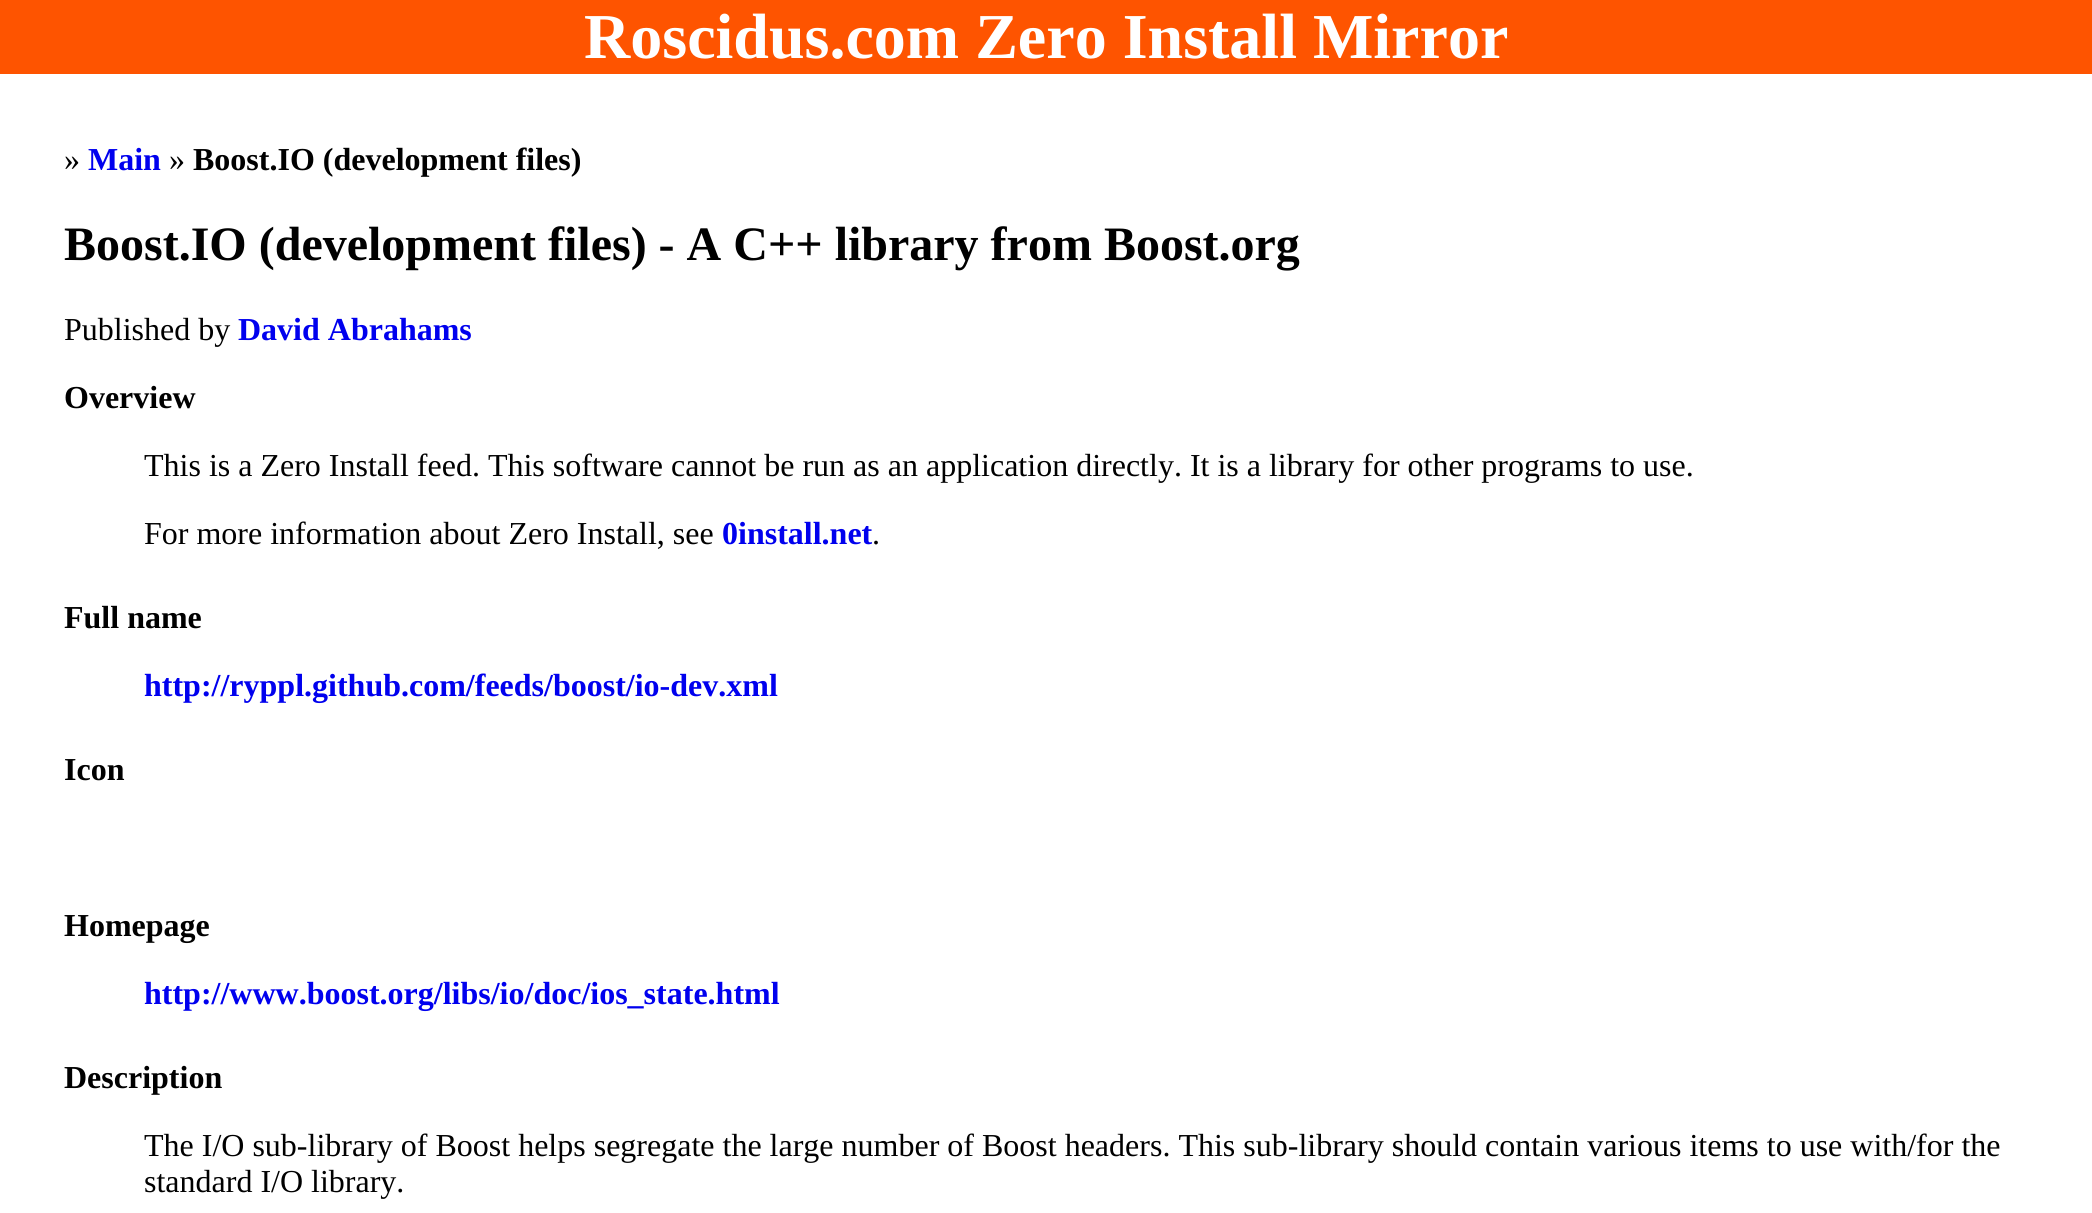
#include <cairo.h>
#include <math.h>
#include <stddef.h>


static void set_color(cairo_t *cr, unsigned color) {
    cairo_set_source_rgb(cr, (color >> 16) / 255.0, (color >> 8 & 255) / 255.0, (color & 255) / 255.0);
}

static void draw_text(cairo_t *cr, double x, double y, const char *s, const char *family, double size, int italic, int bold, unsigned color) {
    cairo_select_font_face(cr, family, italic ? CAIRO_FONT_SLANT_ITALIC : CAIRO_FONT_SLANT_NORMAL,
        bold ? CAIRO_FONT_WEIGHT_BOLD : CAIRO_FONT_WEIGHT_NORMAL);
    cairo_set_font_size(cr, size);
    set_color(cr, color);
    cairo_move_to(cr, x, y);
    cairo_show_text(cr, s);
}

static void fill_rect(cairo_t *cr, double x, double y, double w, double h, unsigned color) {
    set_color(cr, color);
    cairo_rectangle(cr, x, y, w, h);
    cairo_fill(cr);
}

int main(void) {
    cairo_surface_t *surface = cairo_image_surface_create(CAIRO_FORMAT_RGB24, 2092, 1213);
    cairo_t *cr = cairo_create(surface);
    cairo_font_options_t *options = cairo_font_options_create();
    cairo_font_options_set_hint_metrics(options, CAIRO_HINT_METRICS_OFF);
    cairo_font_options_set_hint_style(options, CAIRO_HINT_STYLE_NONE);
    cairo_set_font_options(cr, options);
    cairo_set_miter_limit(cr, 4);
    set_color(cr, 0xFFFFFF);
    cairo_paint(cr);
    fill_rect(cr, 0, 0, 2092, 74, 0xFE5400);
    draw_text(cr, 584, 58, "Roscidus.com Zero Install Mirror", "Liberation Serif", 64, 0, 1, 0xFFFFFF);
    draw_text(cr, 64, 170, "»", "Liberation Serif", 32, 0, 0, 0x000000);
    draw_text(cr, 88, 170, "Main", "Liberation Serif", 32, 0, 1, 0x0000EE);
    draw_text(cr, 169, 170, "»", "Liberation Serif", 32, 0, 0, 0x000000);
    draw_text(cr, 193, 170, "Boost.IO (development files)", "Liberation Serif", 32, 0, 1, 0x000000);
    draw_text(cr, 64, 260, "Boost.IO (development files) - A C++ library from Boost.org", "Liberation Serif", 48, 0, 1, 0x000000);
    draw_text(cr, 64, 340, "Published by", "Liberation Serif", 32, 0, 0, 0x000000);
    draw_text(cr, 238, 340, "David Abrahams", "Liberation Serif", 32, 0, 1, 0x0000EE);
    draw_text(cr, 64, 408, "Overview", "Liberation Serif", 32, 0, 1, 0x000000);
    draw_text(cr, 144, 476, "This is a Zero Install feed. This software cannot be run as an application directly. It is a library for other programs to use.", "Liberation Serif", 32, 0, 0, 0x000000);
    draw_text(cr, 144, 544, "For more information about Zero Install, see", "Liberation Serif", 32, 0, 0, 0x000000);
    draw_text(cr, 722, 544, "0install.net", "Liberation Serif", 32, 0, 1, 0x0000EE);
    draw_text(cr, 872, 544, ".", "Liberation Serif", 32, 0, 0, 0x000000);
    draw_text(cr, 64, 628, "Full name", "Liberation Serif", 32, 0, 1, 0x000000);
    draw_text(cr, 144, 696, "http://ryppl.github.com/feeds/boost/io-dev.xml", "Liberation Serif", 32, 0, 1, 0x0000EE);
    draw_text(cr, 64, 780, "Icon", "Liberation Serif", 32, 0, 1, 0x000000);
    draw_text(cr, 64, 936, "Homepage", "Liberation Serif", 32, 0, 1, 0x000000);
    draw_text(cr, 144, 1004, "http://www.boost.org/libs/io/doc/ios_state.html", "Liberation Serif", 32, 0, 1, 0x0000EE);
    draw_text(cr, 64, 1088, "Description", "Liberation Serif", 32, 0, 1, 0x000000);
    draw_text(cr, 144, 1156, "The I/O sub-library of Boost helps segregate the large number of Boost headers. This sub-library should contain various items to use with/for the", "Liberation Serif", 32, 0, 0, 0x000000);
    draw_text(cr, 144, 1192, "standard I/O library.", "Liberation Serif", 32, 0, 0, 0x000000);
    cairo_surface_write_to_png(surface, "output.png");
    cairo_font_options_destroy(options);
    cairo_destroy(cr);
    cairo_surface_destroy(surface);
    return 0;
}
